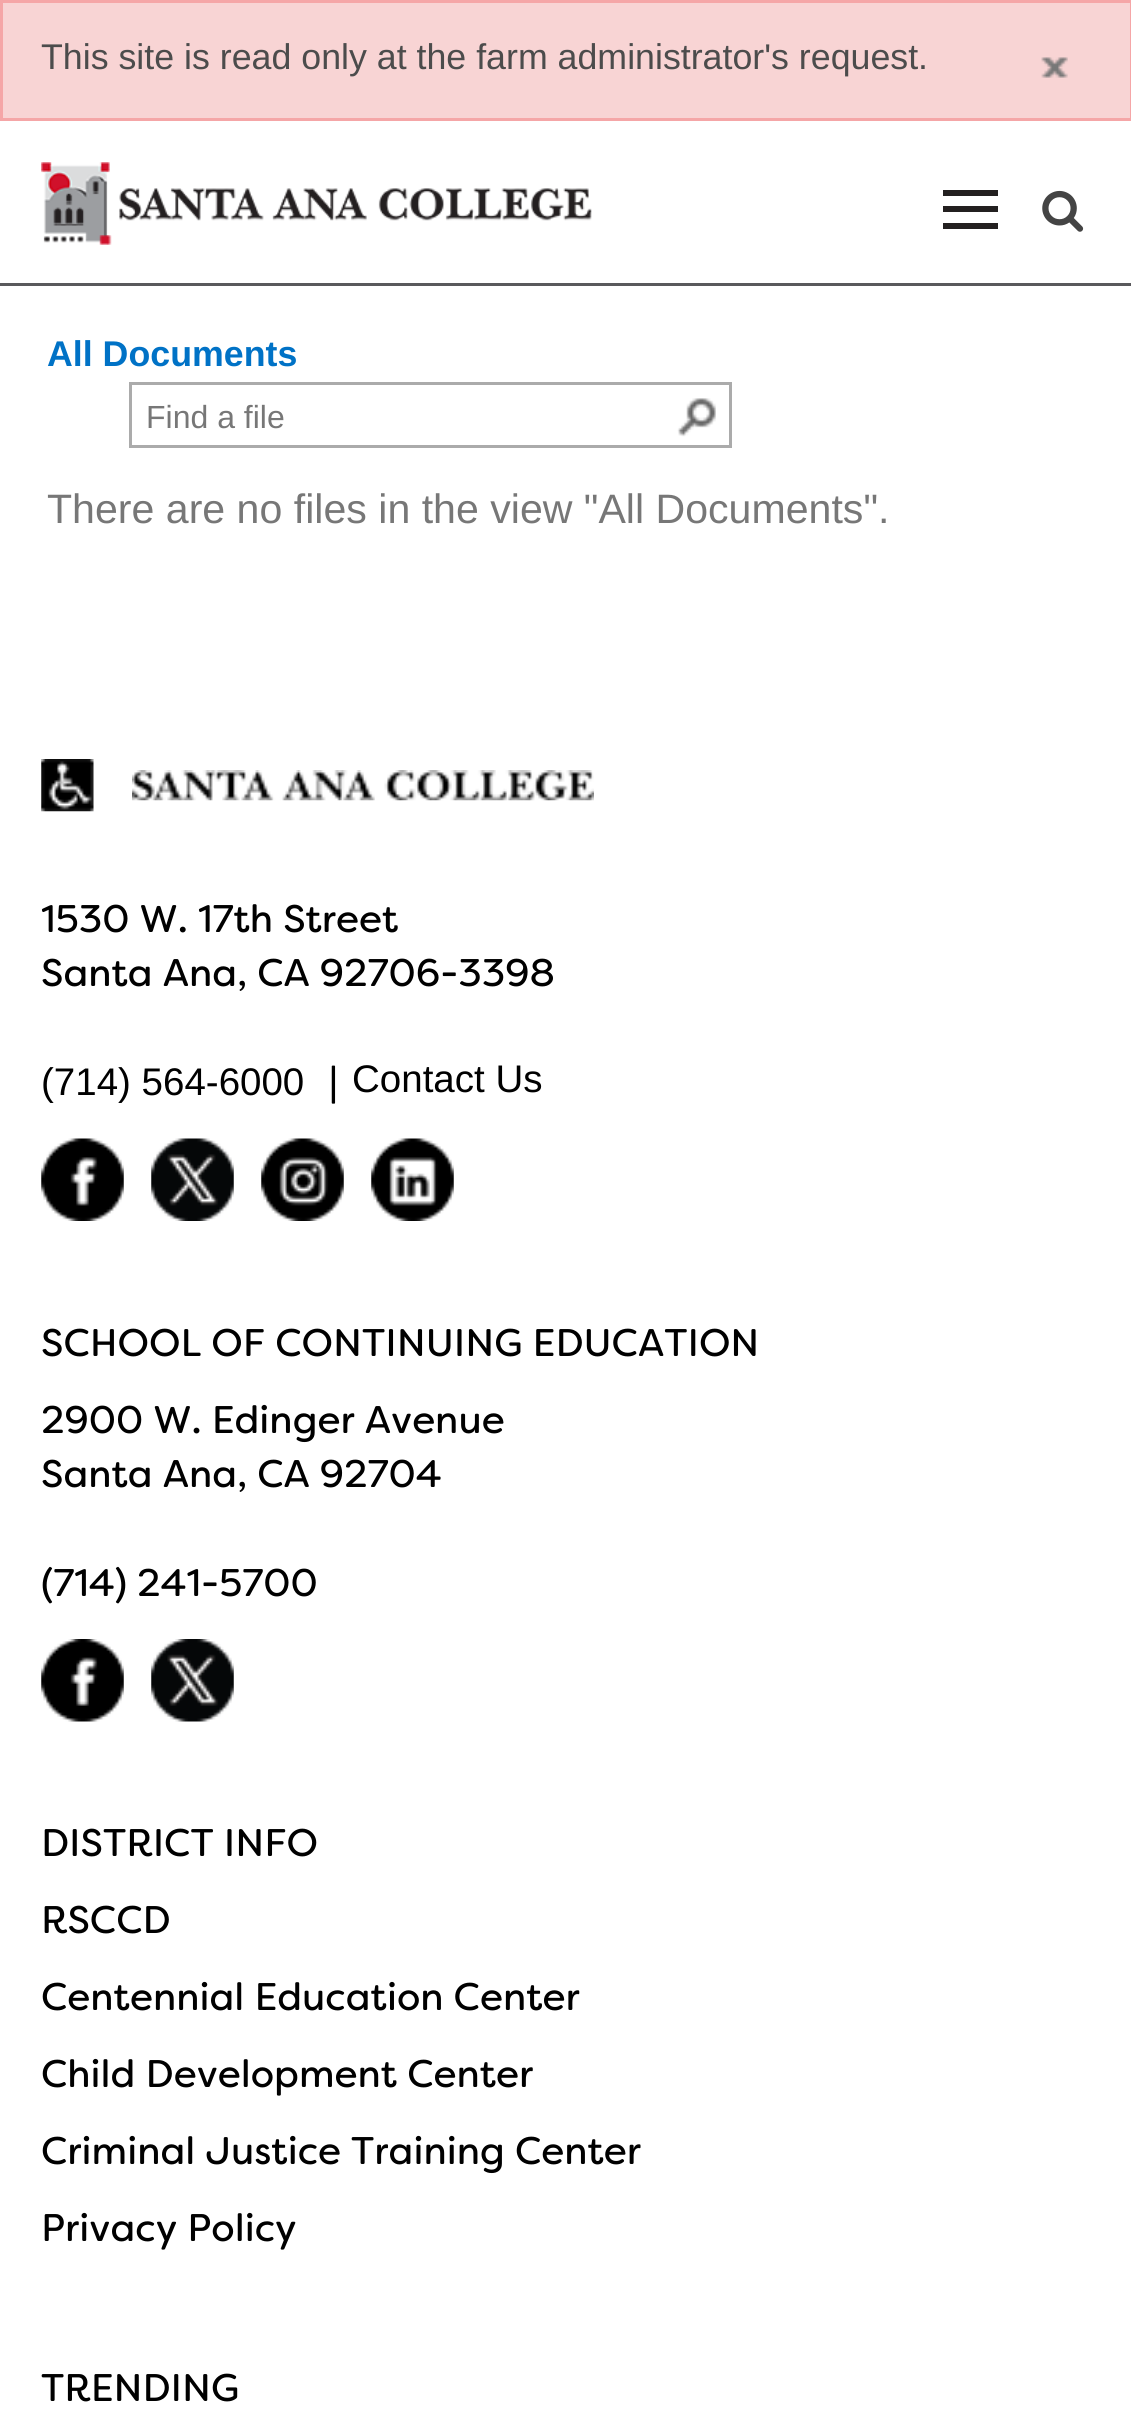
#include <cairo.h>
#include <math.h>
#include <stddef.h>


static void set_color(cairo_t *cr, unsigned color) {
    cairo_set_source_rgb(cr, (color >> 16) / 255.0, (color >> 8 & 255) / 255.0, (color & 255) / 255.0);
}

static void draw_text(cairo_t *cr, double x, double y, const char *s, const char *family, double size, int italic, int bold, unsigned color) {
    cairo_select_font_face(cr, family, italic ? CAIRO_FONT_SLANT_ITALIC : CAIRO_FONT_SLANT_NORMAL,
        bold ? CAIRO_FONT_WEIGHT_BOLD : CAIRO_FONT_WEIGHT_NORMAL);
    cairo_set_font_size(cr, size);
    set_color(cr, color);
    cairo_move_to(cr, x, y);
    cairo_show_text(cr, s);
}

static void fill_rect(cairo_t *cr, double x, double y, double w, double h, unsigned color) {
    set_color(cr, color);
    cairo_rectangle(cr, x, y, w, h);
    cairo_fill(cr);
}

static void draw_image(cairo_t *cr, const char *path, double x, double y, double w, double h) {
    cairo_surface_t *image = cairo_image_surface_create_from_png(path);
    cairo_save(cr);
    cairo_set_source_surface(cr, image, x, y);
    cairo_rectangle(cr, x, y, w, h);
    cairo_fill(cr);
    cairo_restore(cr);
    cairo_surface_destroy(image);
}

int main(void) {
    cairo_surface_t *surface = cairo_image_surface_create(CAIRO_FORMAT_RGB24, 1131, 2413);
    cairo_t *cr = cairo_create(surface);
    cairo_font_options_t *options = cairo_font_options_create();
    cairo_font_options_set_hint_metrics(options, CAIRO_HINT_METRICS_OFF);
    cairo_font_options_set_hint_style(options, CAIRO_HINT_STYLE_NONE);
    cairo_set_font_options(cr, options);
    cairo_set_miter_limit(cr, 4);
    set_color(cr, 0xFFFFFF);
    cairo_paint(cr);
    set_color(cr, 0xF8D4D4);
    cairo_rectangle(cr, 1.5, 1.5, 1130, 118);
    cairo_fill_preserve(cr);
    set_color(cr, 0xF5A6A7);
    cairo_set_line_width(cr, 3);
    cairo_stroke(cr);
    draw_text(cr, 41, 69, "This site is read only at the farm administrator's request.", "Liberation Sans", 35.75, 0, 0, 0x4C4C4C);
    draw_image(cr, "assets/img1.png", 1041, 57, 27, 21);
    fill_rect(cr, 0, 283, 1131, 3, 0x59595C);
    draw_image(cr, "assets/img2.png", 41, 162, 551, 83);
    fill_rect(cr, 943, 190, 55, 6, 0x232020);
    fill_rect(cr, 943, 206, 55, 6, 0x232020);
    fill_rect(cr, 943, 223, 55, 6, 0x232020);
    draw_image(cr, "assets/img3.png", 1042, 190, 42, 42);
    draw_text(cr, 47, 366, "All Documents", "Liberation Sans", 35.75, 0, 1, 0x0072C6);
    cairo_rectangle(cr, 130.5, 383.5, 600, 63);
    set_color(cr, 0xABABAB);
    cairo_stroke(cr);
    draw_text(cr, 146, 428, "Find a file", "Liberation Sans", 32, 0, 0, 0x777777);
    draw_image(cr, "assets/img4.png", 677, 398, 39, 39);
    draw_text(cr, 47, 523, "There are no files in the view \"All Documents\".", "Liberation Sans", 41.1, 0, 0, 0x777777);
    draw_image(cr, "assets/img5.png", 41, 759, 53, 53);
    draw_image(cr, "assets/img6.png", 132, 770, 462, 31);
    draw_text(cr, 41, 932, "1530 W. 17th Street", "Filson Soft", 38.5, 0, 0, 0x000000);
    draw_text(cr, 41, 986, "Santa Ana, CA 92706-3398", "Filson Soft", 38.5, 0, 0, 0x000000);
    draw_text(cr, 41, 1095, "(714) 564-6000", "Liberation Sans", 38.5, 0, 0, 0x000000);
    draw_text(cr, 329, 1095, "|", "Filson Soft", 38.5, 0, 0, 0x000000);
    draw_text(cr, 352, 1092, "Contact Us", "Liberation Sans", 38.5, 0, 0, 0x000000);
    draw_image(cr, "assets/img7.png", 41, 1138, 83, 83);
    draw_image(cr, "assets/img8.png", 151, 1138, 83, 83);
    draw_image(cr, "assets/img9.png", 261, 1138, 83, 83);
    draw_image(cr, "assets/img10.png", 371, 1138, 83, 83);
    draw_text(cr, 41, 1356, "SCHOOL OF CONTINUING EDUCATION", "Filson Soft", 38.5, 0, 0, 0x000000);
    draw_text(cr, 41, 1433, "2900 W. Edinger Avenue", "Filson Soft", 38.5, 0, 0, 0x000000);
    draw_text(cr, 41, 1487, "Santa Ana, CA 92704", "Filson Soft", 38.5, 0, 0, 0x000000);
    draw_text(cr, 41, 1596, "(714) 241-5700", "Filson Soft", 38.5, 0, 0, 0x000000);
    draw_image(cr, "assets/img11.png", 41, 1639, 83, 83);
    draw_image(cr, "assets/img12.png", 151, 1639, 83, 83);
    draw_text(cr, 41, 1856, "DISTRICT INFO", "Filson Soft", 38.5, 0, 0, 0x000000);
    draw_text(cr, 41, 1933, "RSCCD", "Filson Soft", 38.5, 0, 0, 0x000000);
    draw_text(cr, 41, 2010, "Centennial Education Center", "Filson Soft", 38.5, 0, 0, 0x000000);
    draw_text(cr, 41, 2087, "Child Development Center", "Filson Soft", 38.5, 0, 0, 0x000000);
    draw_text(cr, 41, 2164, "Criminal Justice Training Center", "Filson Soft", 38.5, 0, 0, 0x000000);
    draw_text(cr, 41, 2241, "Privacy Policy", "Filson Soft", 38.5, 0, 0, 0x000000);
    draw_text(cr, 41, 2401, "TRENDING", "Filson Soft", 38.5, 0, 0, 0x000000);
    cairo_surface_write_to_png(surface, "output.png");
    cairo_font_options_destroy(options);
    cairo_destroy(cr);
    cairo_surface_destroy(surface);
    return 0;
}
